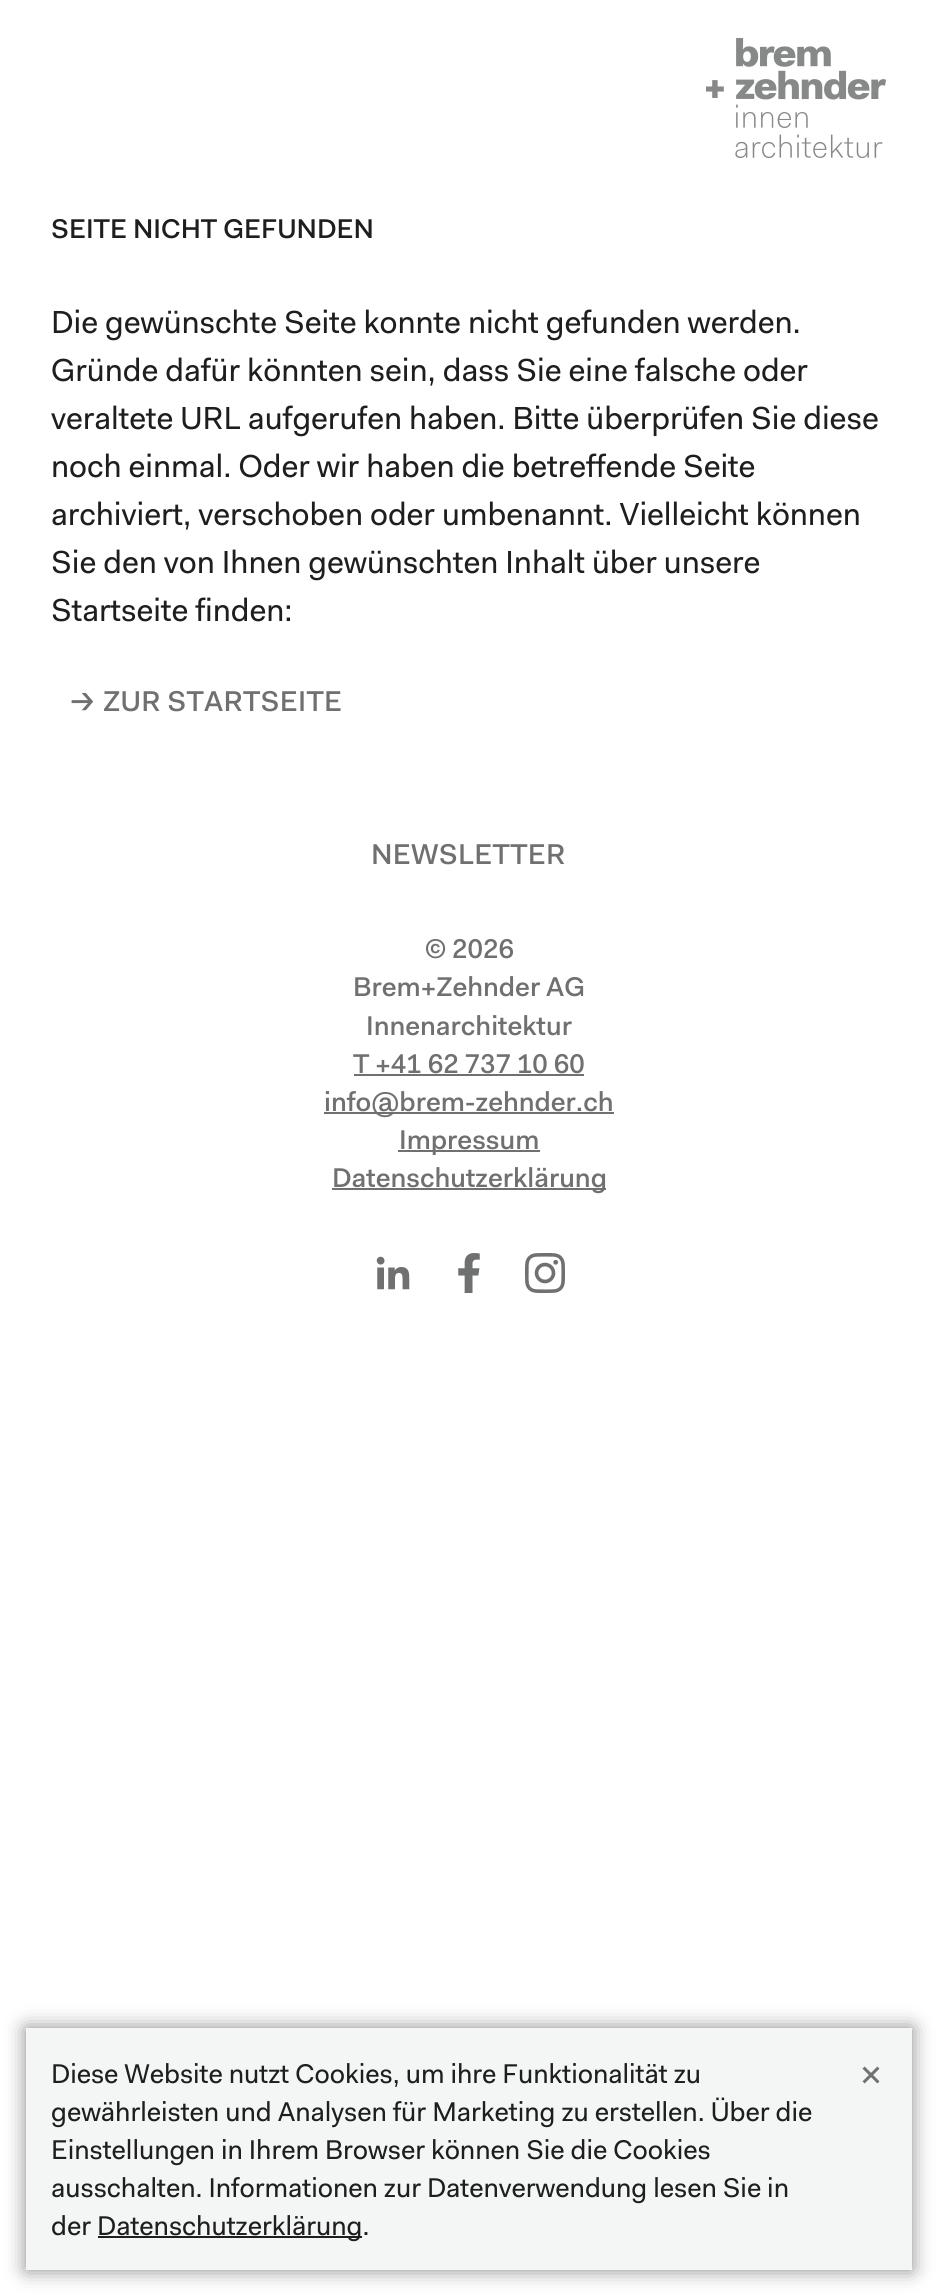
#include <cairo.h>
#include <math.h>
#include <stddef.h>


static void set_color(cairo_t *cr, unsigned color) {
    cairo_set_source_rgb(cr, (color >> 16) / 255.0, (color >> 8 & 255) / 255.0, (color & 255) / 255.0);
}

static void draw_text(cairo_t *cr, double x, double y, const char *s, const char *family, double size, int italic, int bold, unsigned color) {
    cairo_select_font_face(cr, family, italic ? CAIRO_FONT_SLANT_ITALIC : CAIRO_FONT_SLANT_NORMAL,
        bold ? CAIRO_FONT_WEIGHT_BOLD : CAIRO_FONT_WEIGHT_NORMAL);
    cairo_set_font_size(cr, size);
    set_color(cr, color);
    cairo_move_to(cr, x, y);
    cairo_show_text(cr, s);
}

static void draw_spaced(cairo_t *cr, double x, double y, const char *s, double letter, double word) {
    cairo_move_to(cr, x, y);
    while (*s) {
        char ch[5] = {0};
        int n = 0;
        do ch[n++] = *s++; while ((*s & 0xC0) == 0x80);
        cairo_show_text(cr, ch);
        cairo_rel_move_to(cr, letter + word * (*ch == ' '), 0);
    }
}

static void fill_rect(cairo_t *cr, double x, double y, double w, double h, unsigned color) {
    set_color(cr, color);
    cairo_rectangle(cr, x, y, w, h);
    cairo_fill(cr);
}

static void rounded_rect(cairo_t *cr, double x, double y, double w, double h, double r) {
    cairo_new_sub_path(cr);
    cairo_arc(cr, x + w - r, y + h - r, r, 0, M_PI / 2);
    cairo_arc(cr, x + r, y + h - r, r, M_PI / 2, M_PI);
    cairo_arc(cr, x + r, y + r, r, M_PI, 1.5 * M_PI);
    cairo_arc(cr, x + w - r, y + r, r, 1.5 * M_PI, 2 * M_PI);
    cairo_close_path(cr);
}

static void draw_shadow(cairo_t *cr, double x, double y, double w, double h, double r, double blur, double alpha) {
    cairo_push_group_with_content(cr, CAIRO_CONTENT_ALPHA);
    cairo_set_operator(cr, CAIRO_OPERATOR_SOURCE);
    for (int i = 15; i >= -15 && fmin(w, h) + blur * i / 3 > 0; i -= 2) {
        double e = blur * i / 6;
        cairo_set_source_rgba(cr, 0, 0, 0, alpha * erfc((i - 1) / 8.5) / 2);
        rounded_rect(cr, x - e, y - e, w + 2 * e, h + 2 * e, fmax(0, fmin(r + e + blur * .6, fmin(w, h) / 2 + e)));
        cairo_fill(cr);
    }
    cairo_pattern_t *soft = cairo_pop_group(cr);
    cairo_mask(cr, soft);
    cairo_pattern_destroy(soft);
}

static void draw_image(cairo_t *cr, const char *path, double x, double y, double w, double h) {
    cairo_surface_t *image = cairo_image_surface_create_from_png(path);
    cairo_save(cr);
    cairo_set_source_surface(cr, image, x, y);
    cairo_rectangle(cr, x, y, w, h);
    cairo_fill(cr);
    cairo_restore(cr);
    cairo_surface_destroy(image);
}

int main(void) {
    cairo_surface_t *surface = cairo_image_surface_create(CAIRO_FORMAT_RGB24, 938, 2295);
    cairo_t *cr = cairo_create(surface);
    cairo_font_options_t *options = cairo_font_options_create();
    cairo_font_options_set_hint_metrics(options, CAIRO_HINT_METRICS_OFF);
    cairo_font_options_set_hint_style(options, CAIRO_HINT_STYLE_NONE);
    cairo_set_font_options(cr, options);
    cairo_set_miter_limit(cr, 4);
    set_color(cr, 0xFFFFFF);
    cairo_paint(cr);
    draw_image(cr, "assets/img1.png", 706, 38, 180, 120);
    draw_text(cr, 51, 238, "SEITE NICHT GEFUNDEN", "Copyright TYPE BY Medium", 27.2, 0, 0, 0x1E1E1E);
    draw_text(cr, 51, 333, "Die gewünschte Seite konnte nicht gefunden werden.", "Copyright TYPE BY", 32, 0, 0, 0x1E1E1E);
    draw_text(cr, 51, 381, "Gründe dafür könnten sein, dass Sie eine falsche oder", "Copyright TYPE BY", 32, 0, 0, 0x1E1E1E);
    draw_text(cr, 51, 429, "veraltete URL aufgerufen haben. Bitte überprüfen Sie diese", "Copyright TYPE BY", 32, 0, 0, 0x1E1E1E);
    draw_text(cr, 51, 477, "noch einmal. Oder wir haben die betreffende Seite", "Copyright TYPE BY", 32, 0, 0, 0x1E1E1E);
    draw_text(cr, 51, 525, "archiviert, verschoben oder umbenannt. Vielleicht können", "Copyright TYPE BY", 32, 0, 0, 0x1E1E1E);
    draw_text(cr, 51, 573, "Sie den von Ihnen gewünschten Inhalt über unsere", "Copyright TYPE BY", 32, 0, 0, 0x1E1E1E);
    draw_text(cr, 51, 621, "Startseite finden:", "Copyright TYPE BY", 32, 0, 0, 0x1E1E1E);
    draw_image(cr, "assets/img2.png", 71, 692, 23, 19);
    cairo_select_font_face(cr, "Copyright TYPE BY Medium", CAIRO_FONT_SLANT_NORMAL, CAIRO_FONT_WEIGHT_NORMAL);
    cairo_set_font_size(cr, 28.75);
    set_color(cr, 0x6F7070);
    draw_spaced(cr, 103, 711, "ZUR STARTSEITE", 0.25, 0);
    draw_spaced(cr, 371, 864, "NEWSLETTER", 0.25, 0);
    draw_text(cr, 425, 958, "© 2026", "Copyright TYPE BY Medium", 27.2, 0, 0, 0x6F7070);
    draw_text(cr, 353, 996, "Brem+Zehnder AG", "Copyright TYPE BY Medium", 27.2, 0, 0, 0x6F7070);
    draw_text(cr, 366, 1035, "Innenarchitektur", "Copyright TYPE BY Medium", 27.2, 0, 0, 0x6F7070);
    draw_text(cr, 353, 1073, "T +41 62 737 10 60", "Copyright TYPE BY Medium", 27.2, 0, 0, 0x6F7070);
    fill_rect(cr, 354, 1074, 230, 2, 0x6F7070);
    fill_rect(cr, 324, 1112, 290, 2, 0x6F7070);
    draw_text(cr, 324, 1111, "info@brem-zehnder.ch", "Copyright TYPE BY Medium", 27.2, 0, 0, 0x6F7070);
    fill_rect(cr, 398, 1150, 142, 2, 0x6F7070);
    draw_text(cr, 399, 1149, "Impressum", "Copyright TYPE BY Medium", 27.2, 0, 0, 0x6F7070);
    fill_rect(cr, 332, 1188, 274, 2, 0x6F7070);
    draw_text(cr, 332, 1187, "Datenschutzerklärung", "Copyright TYPE BY Medium", 27.2, 0, 0, 0x6F7070);
    draw_image(cr, "assets/img3.png", 376, 1256, 34, 34);
    draw_image(cr, "assets/img4.png", 458, 1253, 22, 40);
    draw_image(cr, "assets/img5.png", 525, 1253, 40, 40);
    set_color(cr, 0x878888);
    draw_shadow(cr, 26, 2028, 886, 242, 0, 10, 1);
    fill_rect(cr, 26, 2028, 886, 242, 0xF4F5F5);
    draw_text(cr, 51, 2083, "Diese Website nutzt Cookies, um ihre Funktionalität zu", "Copyright TYPE BY", 27.2, 0, 0, 0x1E1E1E);
    draw_text(cr, 51, 2121, "gewährleisten und Analysen für Marketing zu erstellen. Über die", "Copyright TYPE BY", 27.2, 0, 0, 0x1E1E1E);
    draw_text(cr, 51, 2159, "Einstellungen in Ihrem Browser können Sie die Cookies", "Copyright TYPE BY", 27.2, 0, 0, 0x1E1E1E);
    draw_text(cr, 51, 2197, "ausschalten. Informationen zur Datenverwendung lesen Sie in", "Copyright TYPE BY", 27.2, 0, 0, 0x1E1E1E);
    draw_text(cr, 51, 2235, "der", "Copyright TYPE BY", 27.2, 0, 0, 0x1E1E1E);
    fill_rect(cr, 98, 2236, 264, 2, 0x1E1E1E);
    draw_text(cr, 97, 2235, "Datenschutzerklärung.", "Copyright TYPE BY", 27.2, 0, 0, 0x1E1E1E);
    draw_image(cr, "assets/img6.png", 862, 2066, 18, 18);
    cairo_surface_write_to_png(surface, "output.png");
    cairo_font_options_destroy(options);
    cairo_destroy(cr);
    cairo_surface_destroy(surface);
    return 0;
}
